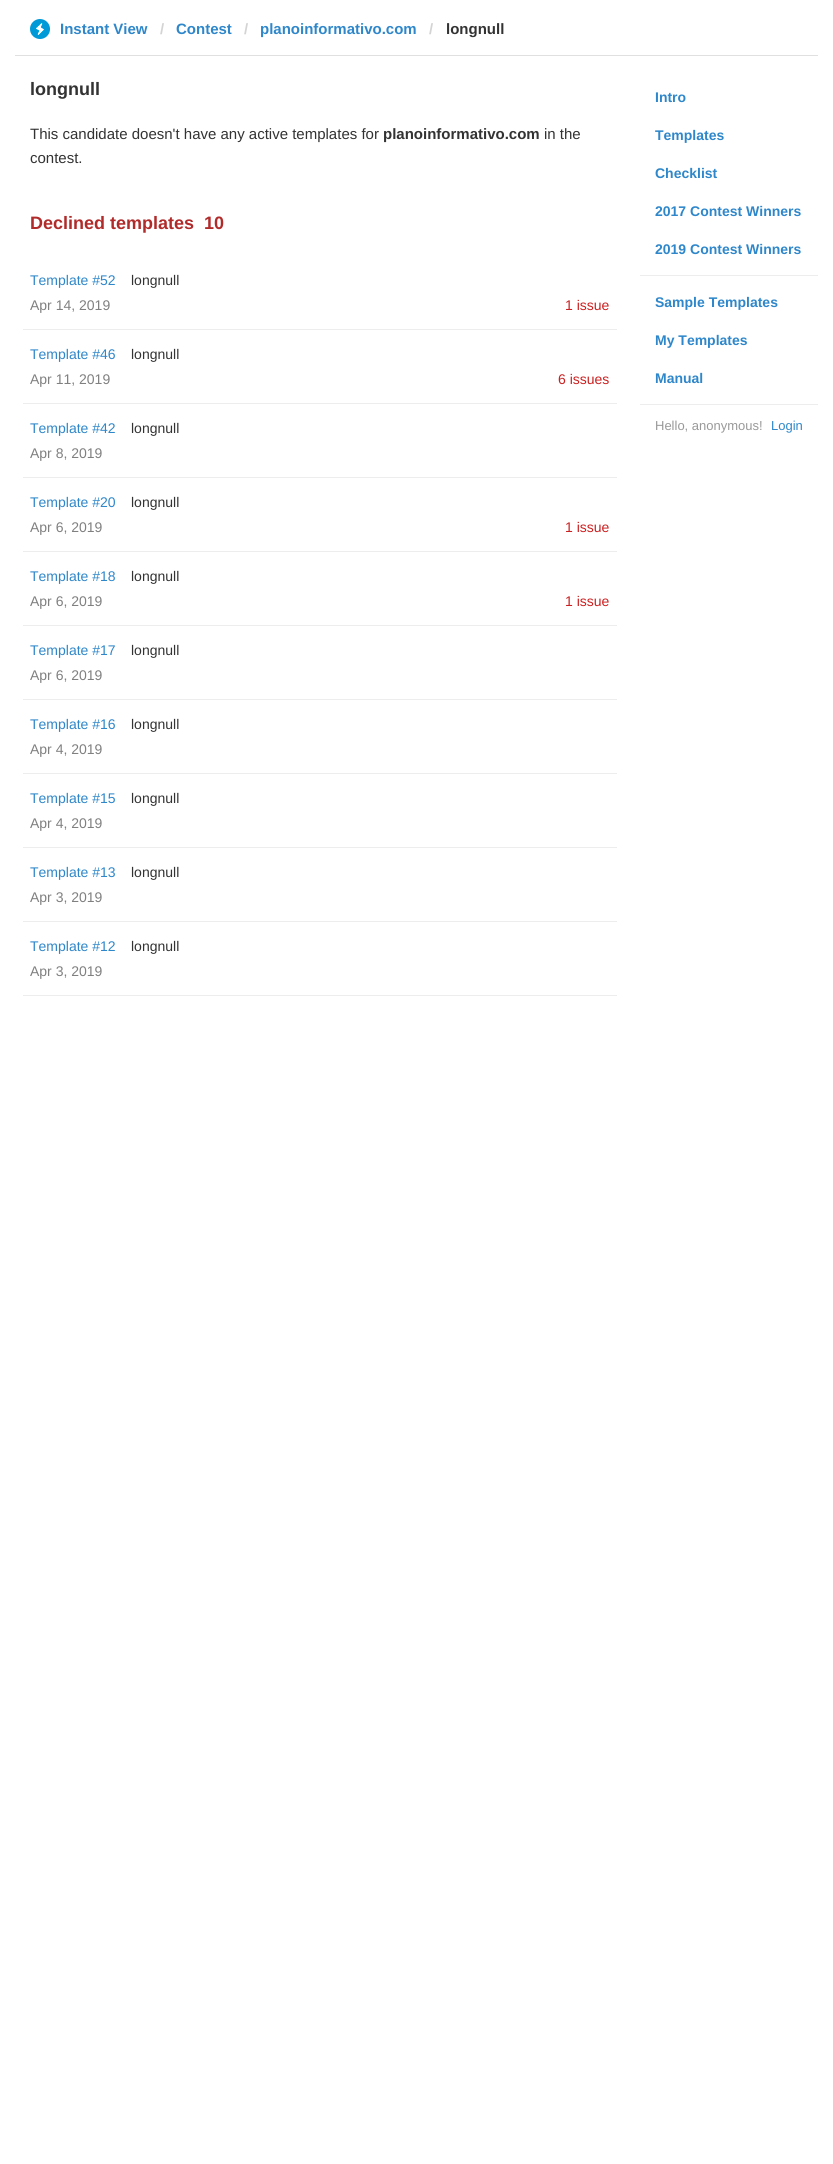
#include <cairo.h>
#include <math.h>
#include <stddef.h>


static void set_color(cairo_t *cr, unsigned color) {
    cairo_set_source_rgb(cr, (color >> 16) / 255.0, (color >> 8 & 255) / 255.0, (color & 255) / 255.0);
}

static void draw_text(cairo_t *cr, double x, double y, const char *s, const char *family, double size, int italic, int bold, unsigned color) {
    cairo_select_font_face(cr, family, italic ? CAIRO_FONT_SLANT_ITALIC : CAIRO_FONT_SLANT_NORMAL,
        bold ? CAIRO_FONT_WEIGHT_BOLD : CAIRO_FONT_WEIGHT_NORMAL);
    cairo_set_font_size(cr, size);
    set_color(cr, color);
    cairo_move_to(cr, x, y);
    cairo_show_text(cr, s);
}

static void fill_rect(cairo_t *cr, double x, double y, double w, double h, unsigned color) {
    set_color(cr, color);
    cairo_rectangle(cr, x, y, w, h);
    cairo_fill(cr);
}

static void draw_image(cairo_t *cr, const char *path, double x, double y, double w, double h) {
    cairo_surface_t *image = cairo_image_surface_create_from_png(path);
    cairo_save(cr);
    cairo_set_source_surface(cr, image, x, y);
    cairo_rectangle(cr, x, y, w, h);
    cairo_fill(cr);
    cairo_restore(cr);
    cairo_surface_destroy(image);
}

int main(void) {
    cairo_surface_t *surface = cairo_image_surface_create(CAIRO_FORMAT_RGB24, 833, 2164);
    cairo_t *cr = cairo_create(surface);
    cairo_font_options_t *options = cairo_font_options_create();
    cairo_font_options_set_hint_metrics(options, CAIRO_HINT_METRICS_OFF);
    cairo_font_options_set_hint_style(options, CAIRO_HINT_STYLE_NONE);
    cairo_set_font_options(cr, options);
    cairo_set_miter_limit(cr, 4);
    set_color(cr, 0xFFFFFF);
    cairo_paint(cr);
    fill_rect(cr, 15, 55, 803, 1, 0xE0E0E0);
    draw_image(cr, "assets/img1.png", 30, 19, 20, 20);
    draw_text(cr, 60, 34, "Instant View", "Liberation Sans", 15, 0, 1, 0x2E87CA);
    draw_text(cr, 160, 34, "/", "Liberation Sans", 15, 0, 1, 0xD4D4D4);
    draw_text(cr, 176, 34, "Contest", "Liberation Sans", 15, 0, 1, 0x2E87CA);
    draw_text(cr, 244, 34, "/", "Liberation Sans", 15, 0, 1, 0xD4D4D4);
    draw_text(cr, 260, 34, "planoinformativo.com", "Liberation Sans", 15, 0, 1, 0x2E87CA);
    draw_text(cr, 429, 34, "/", "Liberation Sans", 15, 0, 1, 0xD4D4D4);
    draw_text(cr, 446, 34, "longnull", "Liberation Sans", 15, 0, 1, 0x333333);
    draw_text(cr, 30, 95, "longnull", "Liberation Sans", 18, 0, 1, 0x333333);
    draw_text(cr, 30, 139, "This candidate doesn't have any active templates for", "Liberation Sans", 15, 0, 0, 0x333333);
    draw_text(cr, 383, 139, "planoinformativo.com", "Liberation Sans", 15, 0, 1, 0x333333);
    draw_text(cr, 544, 139, "in the", "Liberation Sans", 15, 0, 0, 0x333333);
    draw_text(cr, 30, 163, "contest.", "Liberation Sans", 15, 0, 0, 0x333333);
    draw_text(cr, 30, 229, "Declined templates", "Liberation Sans", 18, 0, 1, 0xB12B2B);
    draw_text(cr, 204, 229, "10", "Liberation Sans", 18, 0, 1, 0xB12B2B);
    fill_rect(cr, 23, 329, 594, 1, 0xEDEDED);
    draw_text(cr, 30, 285, "Template #52", "Liberation Sans", 14, 0, 0, 0x2E87CA);
    draw_text(cr, 131, 285, "longnull", "Liberation Sans", 14, 0, 0, 0x333333);
    draw_text(cr, 30, 310, "Apr 14, 2019", "Liberation Sans", 14, 0, 0, 0x808080);
    draw_text(cr, 565, 310, "1 issue", "Liberation Sans", 14, 0, 0, 0xCB2020);
    fill_rect(cr, 23, 403, 594, 1, 0xEDEDED);
    draw_text(cr, 30, 359, "Template #46", "Liberation Sans", 14, 0, 0, 0x2E87CA);
    draw_text(cr, 131, 359, "longnull", "Liberation Sans", 14, 0, 0, 0x333333);
    draw_text(cr, 30, 384, "Apr 11, 2019", "Liberation Sans", 14, 0, 0, 0x808080);
    draw_text(cr, 558, 384, "6 issues", "Liberation Sans", 14, 0, 0, 0xCB2020);
    fill_rect(cr, 23, 477, 594, 1, 0xEDEDED);
    draw_text(cr, 30, 433, "Template #42", "Liberation Sans", 14, 0, 0, 0x2E87CA);
    draw_text(cr, 131, 433, "longnull", "Liberation Sans", 14, 0, 0, 0x333333);
    draw_text(cr, 30, 458, "Apr 8, 2019", "Liberation Sans", 14, 0, 0, 0x808080);
    fill_rect(cr, 23, 551, 594, 1, 0xEDEDED);
    draw_text(cr, 30, 507, "Template #20", "Liberation Sans", 14, 0, 0, 0x2E87CA);
    draw_text(cr, 131, 507, "longnull", "Liberation Sans", 14, 0, 0, 0x333333);
    draw_text(cr, 30, 532, "Apr 6, 2019", "Liberation Sans", 14, 0, 0, 0x808080);
    draw_text(cr, 565, 532, "1 issue", "Liberation Sans", 14, 0, 0, 0xCB2020);
    fill_rect(cr, 23, 625, 594, 1, 0xEDEDED);
    draw_text(cr, 30, 581, "Template #18", "Liberation Sans", 14, 0, 0, 0x2E87CA);
    draw_text(cr, 131, 581, "longnull", "Liberation Sans", 14, 0, 0, 0x333333);
    draw_text(cr, 30, 606, "Apr 6, 2019", "Liberation Sans", 14, 0, 0, 0x808080);
    draw_text(cr, 565, 606, "1 issue", "Liberation Sans", 14, 0, 0, 0xCB2020);
    fill_rect(cr, 23, 699, 594, 1, 0xEDEDED);
    draw_text(cr, 30, 655, "Template #17", "Liberation Sans", 14, 0, 0, 0x2E87CA);
    draw_text(cr, 131, 655, "longnull", "Liberation Sans", 14, 0, 0, 0x333333);
    draw_text(cr, 30, 680, "Apr 6, 2019", "Liberation Sans", 14, 0, 0, 0x808080);
    fill_rect(cr, 23, 773, 594, 1, 0xEDEDED);
    draw_text(cr, 30, 729, "Template #16", "Liberation Sans", 14, 0, 0, 0x2E87CA);
    draw_text(cr, 131, 729, "longnull", "Liberation Sans", 14, 0, 0, 0x333333);
    draw_text(cr, 30, 754, "Apr 4, 2019", "Liberation Sans", 14, 0, 0, 0x808080);
    fill_rect(cr, 23, 847, 594, 1, 0xEDEDED);
    draw_text(cr, 30, 803, "Template #15", "Liberation Sans", 14, 0, 0, 0x2E87CA);
    draw_text(cr, 131, 803, "longnull", "Liberation Sans", 14, 0, 0, 0x333333);
    draw_text(cr, 30, 828, "Apr 4, 2019", "Liberation Sans", 14, 0, 0, 0x808080);
    fill_rect(cr, 23, 921, 594, 1, 0xEDEDED);
    draw_text(cr, 30, 877, "Template #13", "Liberation Sans", 14, 0, 0, 0x2E87CA);
    draw_text(cr, 131, 877, "longnull", "Liberation Sans", 14, 0, 0, 0x333333);
    draw_text(cr, 30, 902, "Apr 3, 2019", "Liberation Sans", 14, 0, 0, 0x808080);
    fill_rect(cr, 23, 995, 594, 1, 0xEDEDED);
    draw_text(cr, 30, 951, "Template #12", "Liberation Sans", 14, 0, 0, 0x2E87CA);
    draw_text(cr, 131, 951, "longnull", "Liberation Sans", 14, 0, 0, 0x333333);
    draw_text(cr, 30, 976, "Apr 3, 2019", "Liberation Sans", 14, 0, 0, 0x808080);
    draw_text(cr, 655, 102, "Intro", "Liberation Sans", 14, 0, 1, 0x2E87CA);
    draw_text(cr, 655, 140, "Templates", "Liberation Sans", 14, 0, 1, 0x2E87CA);
    draw_text(cr, 655, 178, "Checklist", "Liberation Sans", 14, 0, 1, 0x2E87CA);
    draw_text(cr, 655, 216, "2017 Contest Winners", "Liberation Sans", 14, 0, 1, 0x2E87CA);
    draw_text(cr, 655, 254, "2019 Contest Winners", "Liberation Sans", 14, 0, 1, 0x2E87CA);
    fill_rect(cr, 640, 275, 178, 1, 0xEDEDED);
    draw_text(cr, 655, 307, "Sample Templates", "Liberation Sans", 14, 0, 1, 0x2E87CA);
    draw_text(cr, 655, 345, "My Templates", "Liberation Sans", 14, 0, 1, 0x2E87CA);
    draw_text(cr, 655, 383, "Manual", "Liberation Sans", 14, 0, 1, 0x2E87CA);
    fill_rect(cr, 640, 404, 178, 1, 0xEDEDED);
    draw_text(cr, 655, 430, "Hello, anonymous!", "Liberation Sans", 13, 0, 0, 0x999999);
    draw_text(cr, 771, 430, "Login", "Liberation Sans", 13, 0, 0, 0x2E87CA);
    cairo_surface_write_to_png(surface, "output.png");
    cairo_font_options_destroy(options);
    cairo_destroy(cr);
    cairo_surface_destroy(surface);
    return 0;
}
